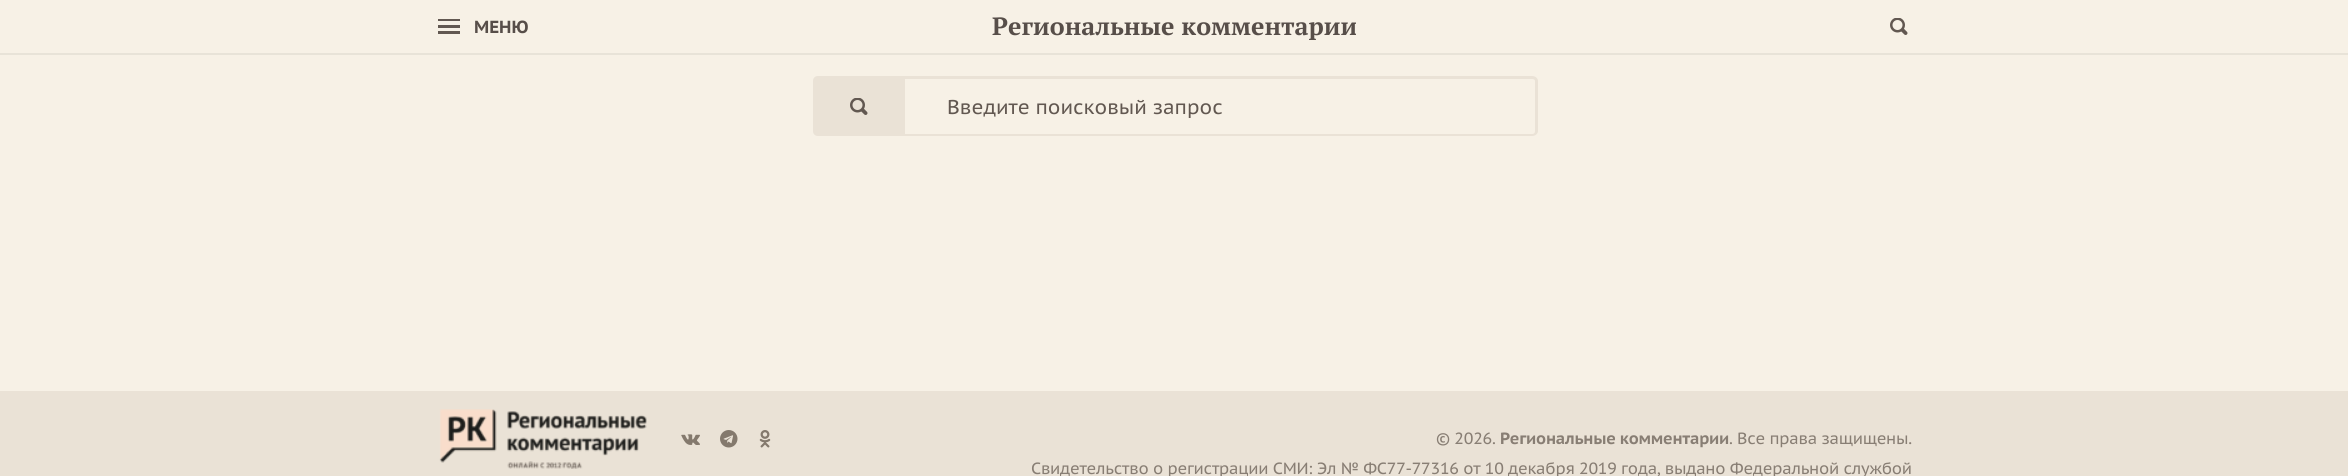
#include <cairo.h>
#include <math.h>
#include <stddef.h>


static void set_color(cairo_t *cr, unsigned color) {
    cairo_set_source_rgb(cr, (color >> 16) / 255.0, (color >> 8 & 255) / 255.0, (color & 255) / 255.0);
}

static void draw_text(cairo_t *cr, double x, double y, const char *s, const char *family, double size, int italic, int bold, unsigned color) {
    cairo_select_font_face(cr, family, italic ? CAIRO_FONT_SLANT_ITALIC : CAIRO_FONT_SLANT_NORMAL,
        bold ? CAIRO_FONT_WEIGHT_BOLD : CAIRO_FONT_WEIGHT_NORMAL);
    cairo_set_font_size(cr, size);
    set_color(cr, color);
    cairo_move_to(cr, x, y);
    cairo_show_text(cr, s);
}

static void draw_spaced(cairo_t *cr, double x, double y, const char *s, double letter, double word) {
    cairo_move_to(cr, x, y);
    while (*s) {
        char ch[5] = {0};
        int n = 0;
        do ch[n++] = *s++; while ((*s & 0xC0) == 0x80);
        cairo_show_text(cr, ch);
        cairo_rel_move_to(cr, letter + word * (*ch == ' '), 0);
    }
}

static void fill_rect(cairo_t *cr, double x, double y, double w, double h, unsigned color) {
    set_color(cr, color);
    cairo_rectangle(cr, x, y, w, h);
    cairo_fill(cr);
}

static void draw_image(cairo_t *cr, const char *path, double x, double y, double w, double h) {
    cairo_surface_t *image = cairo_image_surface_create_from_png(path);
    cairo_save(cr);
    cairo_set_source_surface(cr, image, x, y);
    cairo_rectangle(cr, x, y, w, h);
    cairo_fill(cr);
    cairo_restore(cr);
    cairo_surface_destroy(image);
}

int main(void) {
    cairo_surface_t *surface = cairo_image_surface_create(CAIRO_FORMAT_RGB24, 2348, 476);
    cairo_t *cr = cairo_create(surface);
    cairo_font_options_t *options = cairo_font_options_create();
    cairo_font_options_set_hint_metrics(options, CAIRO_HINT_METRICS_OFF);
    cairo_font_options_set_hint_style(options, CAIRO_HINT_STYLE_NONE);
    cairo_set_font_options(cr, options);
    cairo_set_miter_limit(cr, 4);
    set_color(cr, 0xF7F1E6);
    cairo_paint(cr);
    set_color(cr, 0xE8E3D8);
    cairo_new_path(cr);
    cairo_move_to(cr, 0, 52);
    cairo_line_to(cr, 0, 55);
    cairo_line_to(cr, 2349, 55);
    cairo_line_to(cr, 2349, 3);
    cairo_line_to(cr, 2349, 52);
    cairo_close_path(cr);
    cairo_fill(cr);
    fill_rect(cr, 0, 52, 2348, 1, 0xF7F1E6);
    fill_rect(cr, 438, 19, 22, 2, 0x625851);
    draw_text(cr, 474, 33, "МЕНЮ", "PT Sans Caption", 17.5, 0, 1, 0x574E49);
    fill_rect(cr, 438, 25, 22, 3, 0x625851);
    fill_rect(cr, 438, 31, 22, 3, 0x625851);
    draw_text(cr, 992, 35, "Региональные комментарии", "PT Serif", 25, 0, 1, 0x574E49);
    draw_image(cr, "assets/img1.png", 1890, 18, 18, 17);
    set_color(cr, 0xEAE2D6);
    cairo_new_path(cr);
    cairo_move_to(cr, 818, 76);
    cairo_line_to(cr, 905, 76);
    cairo_line_to(cr, 905, 136);
    cairo_line_to(cr, 818, 136);
    cairo_curve_to(cr, 815, 136, 813, 134, 813, 131);
    cairo_line_to(cr, 813, 81);
    cairo_curve_to(cr, 813, 78, 815, 76, 818, 76);
    cairo_close_path(cr);
    cairo_fill(cr);
    draw_image(cr, "assets/img2.png", 850, 98, 18, 17);
    cairo_set_fill_rule(cr, CAIRO_FILL_RULE_EVEN_ODD);
    cairo_new_path(cr);
    cairo_move_to(cr, 905, 76);
    cairo_line_to(cr, 1532, 76);
    cairo_curve_to(cr, 1535, 76, 1538, 78, 1538, 81);
    cairo_line_to(cr, 1538, 131);
    cairo_curve_to(cr, 1538, 134, 1535, 136, 1532, 136);
    cairo_line_to(cr, 905, 136);
    cairo_close_path(cr);
    cairo_move_to(cr, 905, 79);
    cairo_line_to(cr, 1532, 79);
    cairo_curve_to(cr, 1534, 79, 1535, 80, 1535, 81);
    cairo_line_to(cr, 1535, 131);
    cairo_curve_to(cr, 1535, 133, 1534, 134, 1532, 134);
    cairo_line_to(cr, 905, 134);
    cairo_close_path(cr);
    cairo_fill(cr);
    draw_text(cr, 947, 114, "Введите поисковый запрос", "PT Sans Caption", 20, 0, 0, 0x625851);
    fill_rect(cr, 0, 391, 2348, 85, 0xEAE2D6);
    draw_image(cr, "assets/img3.png", 439, 409, 208, 60);
    draw_image(cr, "assets/img4.png", 681, 434, 19, 11);
    draw_image(cr, "assets/img5.png", 720, 430, 18, 18);
    draw_image(cr, "assets/img6.png", 759, 430, 12, 18);
    cairo_set_font_size(cr, 16.25);
    set_color(cr, 0x887E74);
    draw_spaced(cr, 1436, 444, "© 2026.", -0.25, 0);
    cairo_select_font_face(cr, "PT Sans Caption", CAIRO_FONT_SLANT_NORMAL, CAIRO_FONT_WEIGHT_BOLD);
    draw_spaced(cr, 1500, 444, "Региональные комментарии", -0.25, 0);
    cairo_select_font_face(cr, "PT Sans Caption", CAIRO_FONT_SLANT_NORMAL, CAIRO_FONT_WEIGHT_NORMAL);
    draw_spaced(cr, 1729, 444, ". Все права защищены.", -0.25, 0);
    draw_spaced(cr, 1031, 474, "Свидетельство о регистрации СМИ: Эл № ФC77-77316 от 10 декабря 2019 года, выдано Федеральной службой", -0.25, 0);
    cairo_surface_write_to_png(surface, "output.png");
    cairo_font_options_destroy(options);
    cairo_destroy(cr);
    cairo_surface_destroy(surface);
    return 0;
}
